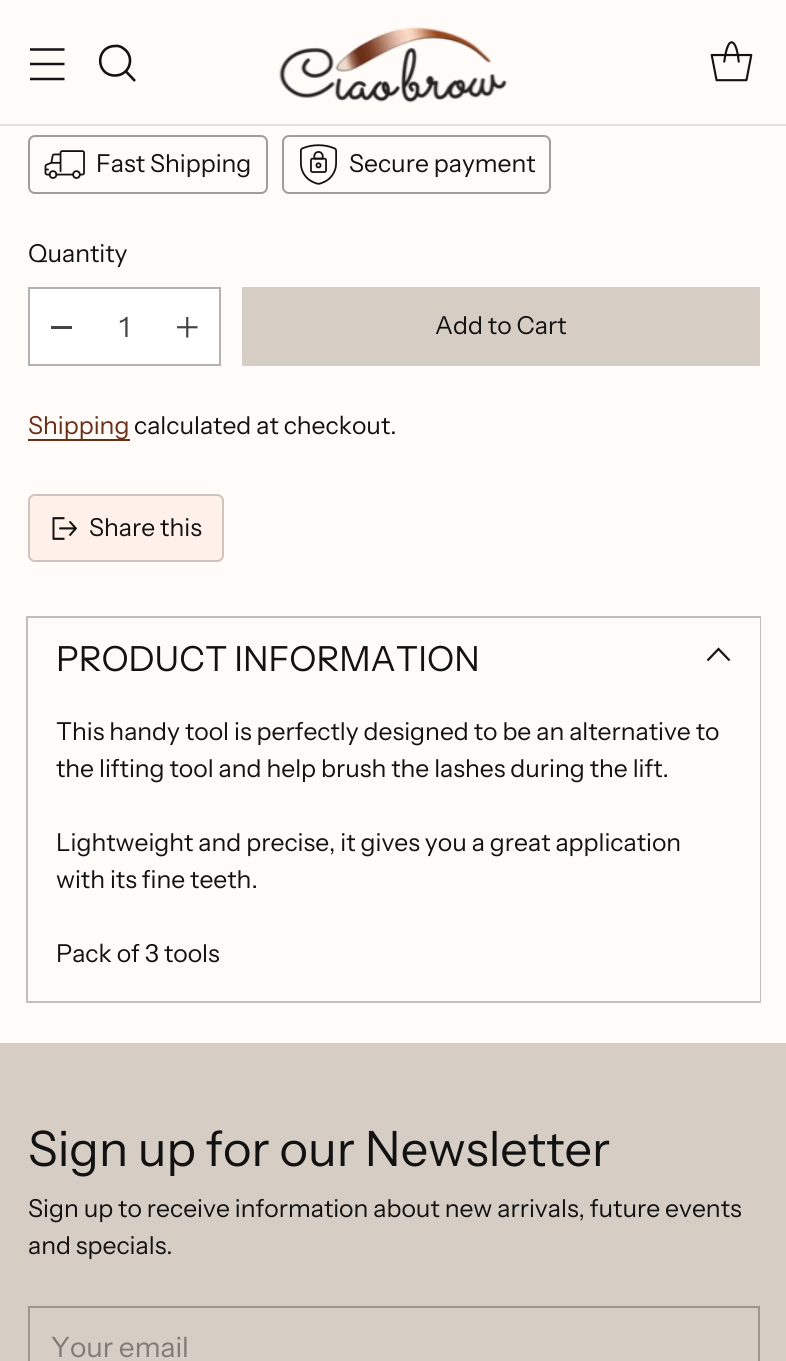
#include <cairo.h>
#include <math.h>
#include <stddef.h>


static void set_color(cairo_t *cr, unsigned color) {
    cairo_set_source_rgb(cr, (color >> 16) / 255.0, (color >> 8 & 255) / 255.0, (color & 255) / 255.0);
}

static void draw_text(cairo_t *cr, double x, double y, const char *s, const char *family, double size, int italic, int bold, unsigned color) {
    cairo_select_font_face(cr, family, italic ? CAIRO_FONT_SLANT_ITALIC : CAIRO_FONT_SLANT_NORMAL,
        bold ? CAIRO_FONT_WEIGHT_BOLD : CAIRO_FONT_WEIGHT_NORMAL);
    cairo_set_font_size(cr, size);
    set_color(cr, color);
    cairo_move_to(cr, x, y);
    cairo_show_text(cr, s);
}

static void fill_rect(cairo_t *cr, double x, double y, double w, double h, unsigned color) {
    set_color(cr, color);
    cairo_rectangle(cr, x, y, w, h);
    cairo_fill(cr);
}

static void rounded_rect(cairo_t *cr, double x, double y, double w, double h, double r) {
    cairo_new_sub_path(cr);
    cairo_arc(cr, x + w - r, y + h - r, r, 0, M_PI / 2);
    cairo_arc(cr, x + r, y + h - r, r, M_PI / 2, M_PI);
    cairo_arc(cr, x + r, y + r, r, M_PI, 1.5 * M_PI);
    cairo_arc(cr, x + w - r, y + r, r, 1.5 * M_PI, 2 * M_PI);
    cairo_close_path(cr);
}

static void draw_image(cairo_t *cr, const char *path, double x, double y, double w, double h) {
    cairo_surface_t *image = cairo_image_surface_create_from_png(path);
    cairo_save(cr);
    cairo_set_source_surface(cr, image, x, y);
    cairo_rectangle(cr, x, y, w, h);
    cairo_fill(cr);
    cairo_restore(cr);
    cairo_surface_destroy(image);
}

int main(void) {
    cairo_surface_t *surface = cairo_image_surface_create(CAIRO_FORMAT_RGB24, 786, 1361);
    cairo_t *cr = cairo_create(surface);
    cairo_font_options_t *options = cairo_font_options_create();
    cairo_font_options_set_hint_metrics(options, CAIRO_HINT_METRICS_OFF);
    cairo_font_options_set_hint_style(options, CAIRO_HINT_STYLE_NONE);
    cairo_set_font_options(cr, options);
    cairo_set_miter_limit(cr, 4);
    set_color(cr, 0xFFFBF9);
    cairo_paint(cr);
    cairo_rectangle(cr, -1, -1, 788, 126);
    set_color(cr, 0xE6E2E0);
    cairo_stroke(cr);
    cairo_new_path(cr);
    cairo_move_to(cr, 30, 64);
    cairo_line_to(cr, 64.5, 64);
    cairo_move_to(cr, 30, 49.5);
    cairo_line_to(cr, 64.5, 49.5);
    cairo_move_to(cr, 30, 79);
    cairo_line_to(cr, 64.5, 79);
    set_color(cr, 0x121212);
    cairo_set_line_width(cr, 2.5);
    cairo_stroke(cr);
    cairo_new_path(cr);
    cairo_move_to(cr, 115, 75.5);
    cairo_curve_to(cr, 130, 75.5, 135.5, 56.5, 123.5, 48.5);
    cairo_curve_to(cr, 121, 46.5, 118, 45.5, 115, 46);
    cairo_curve_to(cr, 95, 46.5, 95.5, 75.5, 115, 75.5);
    cairo_close_path(cr);
    cairo_set_line_width(cr, 2.6);
    cairo_set_line_cap(cr, CAIRO_LINE_CAP_ROUND);
    cairo_stroke(cr);
    cairo_new_path(cr);
    cairo_move_to(cr, 126, 71.5);
    cairo_line_to(cr, 135, 81);
    cairo_set_line_cap(cr, CAIRO_LINE_CAP_BUTT);
    cairo_stroke(cr);
    draw_image(cr, "assets/img1.png", 279, 27, 229, 76);
    draw_image(cr, "assets/img2.png", 710, 41, 43, 41);
    rounded_rect(cr, 29, 136, 238, 57, 6);
    set_color(cr, 0xA09E9D);
    cairo_set_line_width(cr, 2);
    cairo_stroke(cr);
    draw_image(cr, "assets/img3.png", 44, 150, 41, 29);
    draw_text(cr, 96, 172, "Fast Shipping", "Instrument Sans", 24.7, 0, 0, 0x121212);
    rounded_rect(cr, 283, 136, 267, 57, 6);
    set_color(cr, 0xA09E9D);
    cairo_stroke(cr);
    draw_image(cr, "assets/img4.png", 300, 144, 37, 41);
    draw_text(cr, 349, 172, "Secure payment", "Instrument Sans", 24.7, 0, 0, 0x121212);
    draw_text(cr, 28, 262, "Quantity", "Instrument Sans", 24.7, 0, 0, 0x121212);
    cairo_rectangle(cr, 29, 288, 191, 77);
    set_color(cr, 0xB4B2B1);
    cairo_stroke(cr);
    fill_rect(cr, 30, 289, 189, 75, 0xFFFFFF);
    fill_rect(cr, 51, 326, 21, 3, 0x444444);
    draw_text(cr, 119, 337, "1", "Instrument Sans", 28, 0, 0, 0x444444);
    draw_image(cr, "assets/img5.png", 177, 317, 21, 21);
    fill_rect(cr, 242, 287, 518, 79, 0xD6CDC4);
    draw_text(cr, 435, 334, "Add to Cart", "Instrument Sans", 24.7, 0, 0, 0x121212);
    fill_rect(cr, 28, 439, 102, 2, 0x6A2E17);
    draw_text(cr, 28, 434, "Shipping", "Instrument Sans", 24.7, 0, 0, 0x6A2E17);
    draw_text(cr, 134, 434, "calculated at checkout.", "Instrument Sans", 24.7, 0, 0, 0x121212);
    set_color(cr, 0xFFF1EA);
    rounded_rect(cr, 28, 494, 196, 68, 7);
    cairo_fill(cr);
    rounded_rect(cr, 29, 495, 194, 66, 6);
    cairo_set_source_rgba(cr, 0.071, 0.071, 0.071, 0.2);
    cairo_stroke(cr);
    draw_image(cr, "assets/img6.png", 52, 517, 25, 23);
    draw_text(cr, 89, 536, "Share this", "Instrument Sans", 24.7, 0, 0, 0x121212);
    cairo_rectangle(cr, 27, 617, 733, 385);
    set_color(cr, 0xC6BCB9);
    cairo_stroke(cr);
    fill_rect(cr, 759, 618, 1, 383, 0xFFFBF9);
    draw_text(cr, 56, 671, "PRODUCT INFORMATION", "Instrument Sans", 34.6, 0, 0, 0x121212);
    cairo_new_path(cr);
    cairo_move_to(cr, 707.5, 660.5);
    cairo_line_to(cr, 718.5, 649);
    cairo_line_to(cr, 729.5, 660.5);
    cairo_set_line_width(cr, 2.2);
    cairo_stroke(cr);
    draw_text(cr, 56, 740, "This handy tool is perfectly designed to be an alternative to", "Instrument Sans", 24.7, 0, 0, 0x121212);
    draw_text(cr, 56, 777, "the lifting tool and help brush the lashes during the lift.", "Instrument Sans", 24.7, 0, 0, 0x121212);
    draw_text(cr, 56, 851, "Lightweight and precise, it gives you a great application", "Instrument Sans", 24.7, 0, 0, 0x121212);
    draw_text(cr, 56, 888, "with its fine teeth.", "Instrument Sans", 24.7, 0, 0, 0x121212);
    draw_text(cr, 56, 962, "Pack of 3 tools", "Instrument Sans", 24.7, 0, 0, 0x121212);
    fill_rect(cr, 0, 1043, 786, 318, 0xD6CDC4);
    draw_text(cr, 28, 1166, "Sign up for our Newsletter", "Instrument Sans", 48.75, 0, 0, 0x121212);
    draw_text(cr, 28, 1217, "Sign up to receive information about new arrivals, future events", "Instrument Sans", 24.7, 0, 0, 0x121212);
    draw_text(cr, 28, 1254, "and specials.", "Instrument Sans", 24.7, 0, 0, 0x121212);
    cairo_rectangle(cr, 29, 1307, 730, 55);
    set_color(cr, 0x9C9691);
    cairo_set_line_width(cr, 2);
    cairo_stroke(cr);
    draw_text(cr, 51, 1357, "Your email", "Instrument Sans", 28, 0, 0, 0x7E7B77);
    cairo_surface_write_to_png(surface, "output.png");
    cairo_font_options_destroy(options);
    cairo_destroy(cr);
    cairo_surface_destroy(surface);
    return 0;
}
